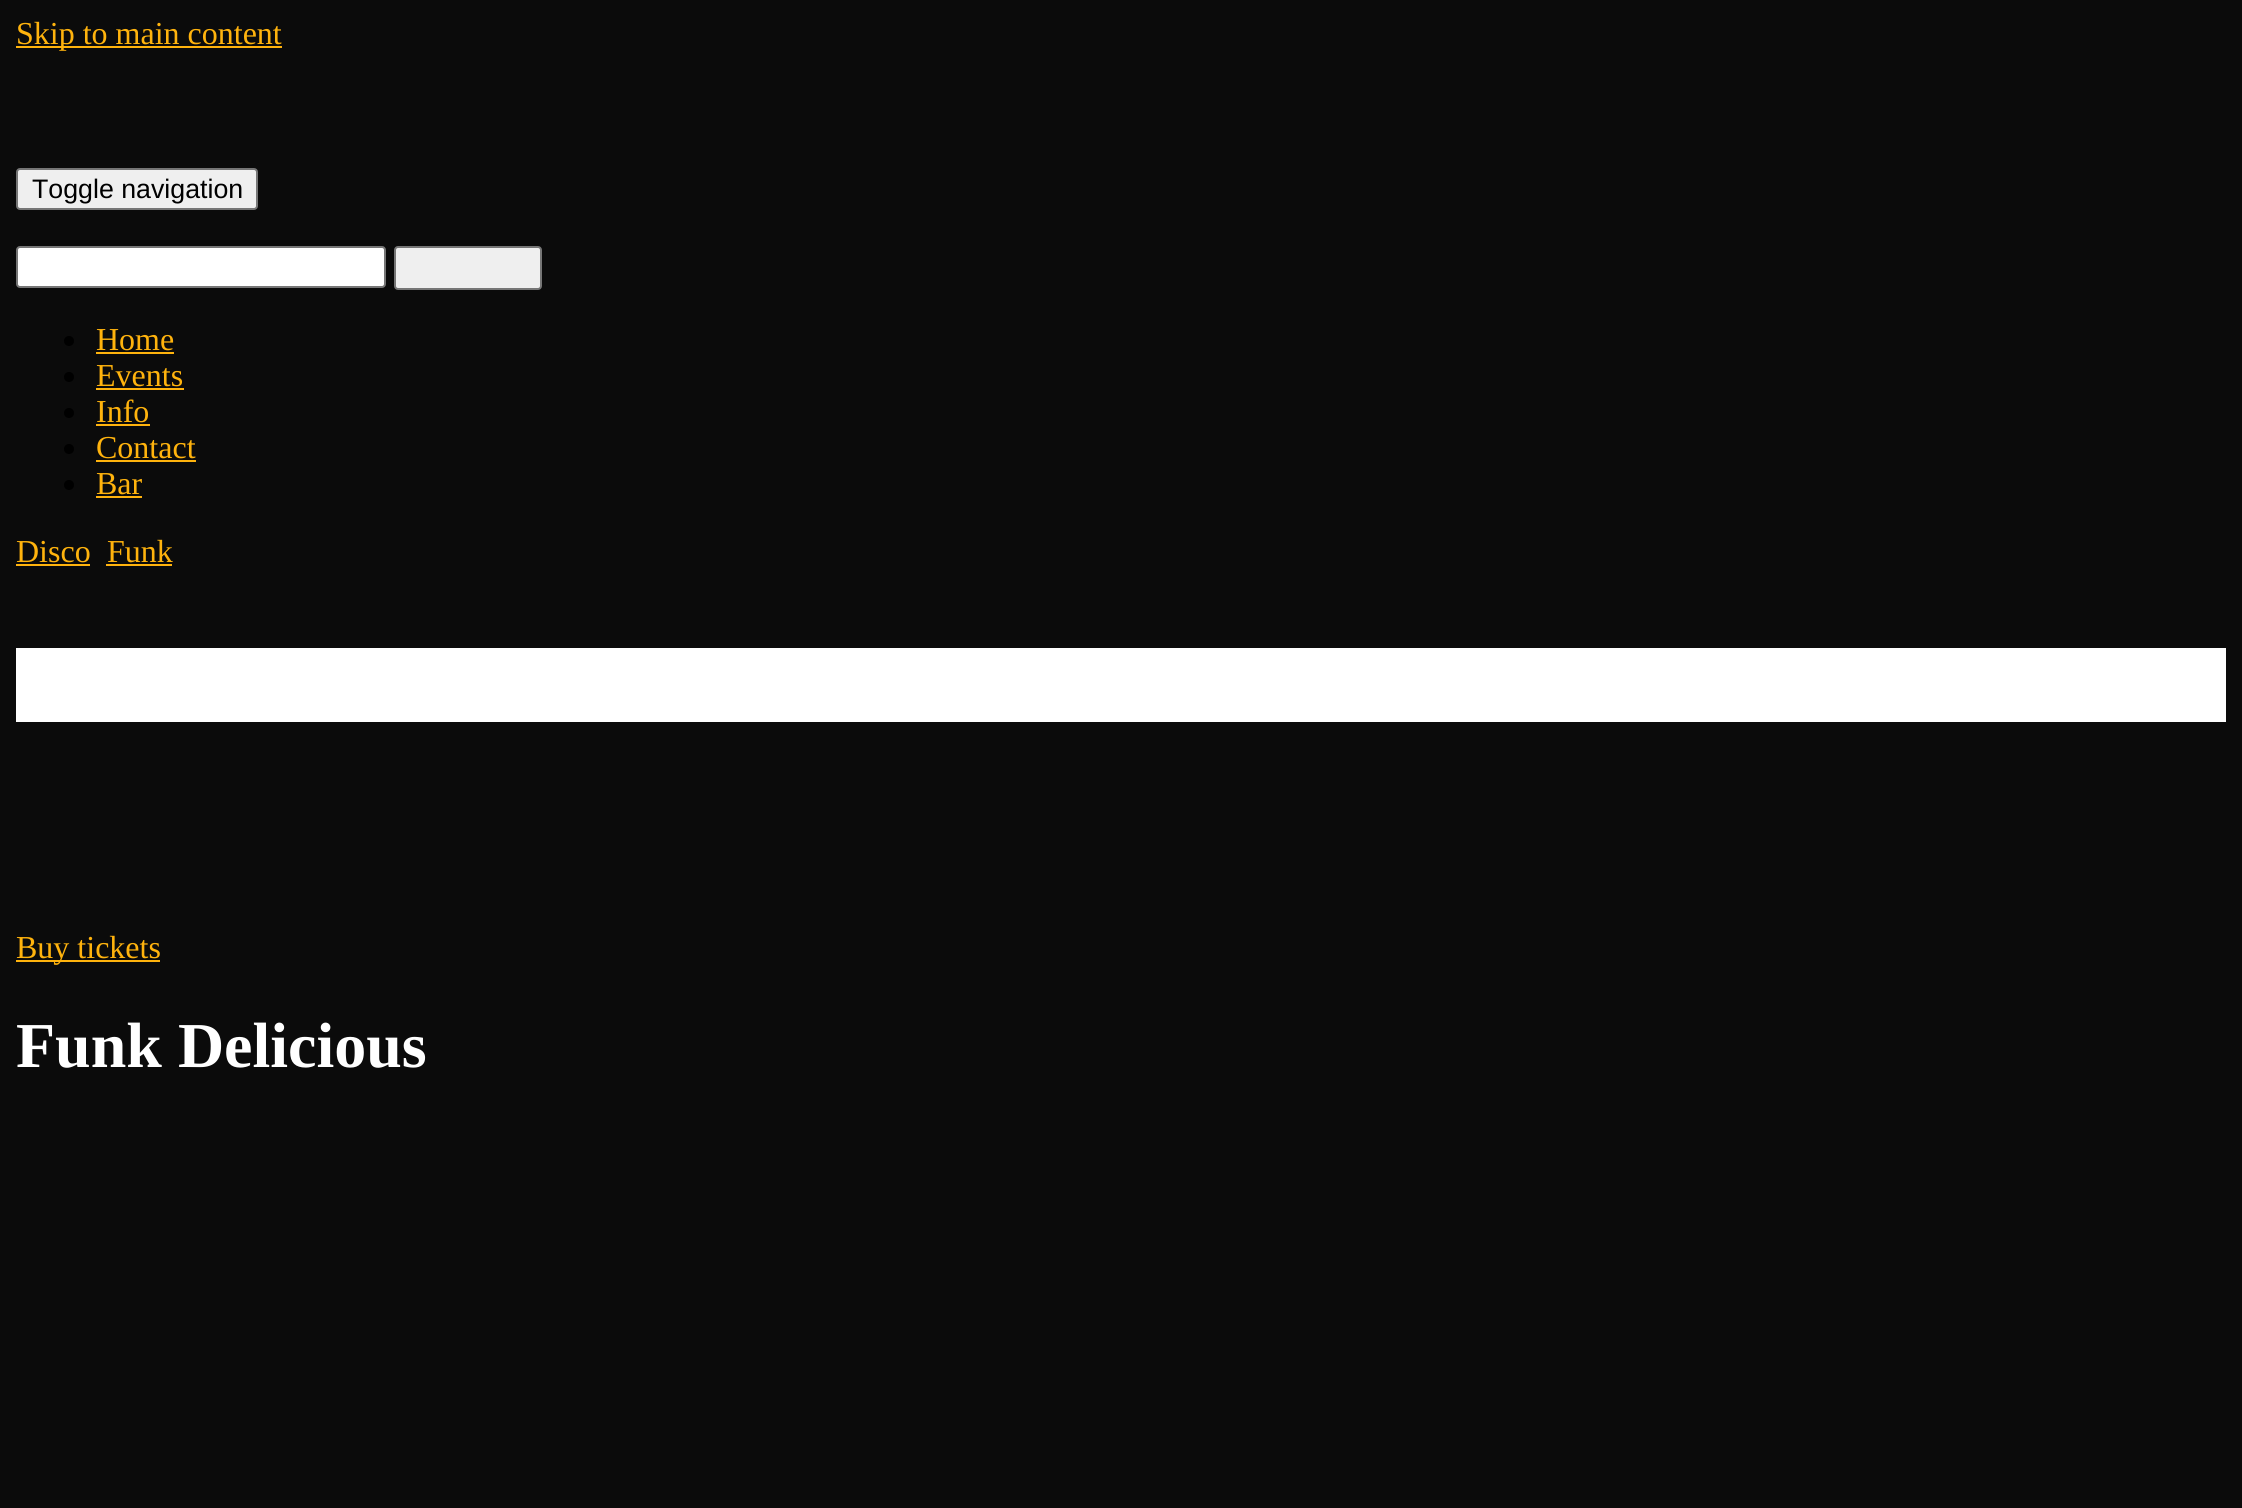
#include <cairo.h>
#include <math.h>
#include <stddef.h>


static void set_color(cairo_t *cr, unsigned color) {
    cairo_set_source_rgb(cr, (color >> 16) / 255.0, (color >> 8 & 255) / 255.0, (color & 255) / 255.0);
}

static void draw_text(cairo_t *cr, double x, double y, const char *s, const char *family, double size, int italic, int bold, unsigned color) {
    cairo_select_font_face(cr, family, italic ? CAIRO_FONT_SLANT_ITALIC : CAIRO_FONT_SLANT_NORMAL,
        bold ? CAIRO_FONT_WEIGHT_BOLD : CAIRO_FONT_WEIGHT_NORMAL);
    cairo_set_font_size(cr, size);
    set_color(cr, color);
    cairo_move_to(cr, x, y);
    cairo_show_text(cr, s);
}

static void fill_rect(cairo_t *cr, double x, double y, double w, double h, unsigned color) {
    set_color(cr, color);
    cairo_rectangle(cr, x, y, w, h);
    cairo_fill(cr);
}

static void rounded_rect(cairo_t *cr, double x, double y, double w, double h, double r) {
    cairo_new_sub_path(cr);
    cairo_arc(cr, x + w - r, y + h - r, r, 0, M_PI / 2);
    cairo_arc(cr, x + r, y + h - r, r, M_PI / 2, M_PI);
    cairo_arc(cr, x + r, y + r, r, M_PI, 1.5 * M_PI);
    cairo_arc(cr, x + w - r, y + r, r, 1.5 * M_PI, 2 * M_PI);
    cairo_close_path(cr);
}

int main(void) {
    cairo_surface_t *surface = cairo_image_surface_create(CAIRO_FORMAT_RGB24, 2242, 1508);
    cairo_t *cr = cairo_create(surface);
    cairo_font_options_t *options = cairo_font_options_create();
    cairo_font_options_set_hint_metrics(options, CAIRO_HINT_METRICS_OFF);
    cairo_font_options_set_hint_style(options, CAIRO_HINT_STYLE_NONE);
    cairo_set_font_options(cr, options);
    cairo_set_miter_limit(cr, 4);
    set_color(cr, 0x0B0B0B);
    cairo_paint(cr);
    fill_rect(cr, 16, 46, 266, 2, 0xFFB30D);
    draw_text(cr, 16, 44, "Skip to main content", "Liberation Serif", 32, 0, 0, 0xFFB30D);
    set_color(cr, 0xEFEFEF);
    rounded_rect(cr, 17, 169, 240, 40, 3);
    cairo_fill_preserve(cr);
    set_color(cr, 0x767676);
    cairo_stroke(cr);
    draw_text(cr, 32, 198, "Toggle navigation", "Liberation Sans", 26.75, 0, 0, 0x000000);
    set_color(cr, 0xFFFFFF);
    rounded_rect(cr, 17, 247, 368, 40, 3);
    cairo_fill_preserve(cr);
    set_color(cr, 0x767676);
    cairo_stroke(cr);
    set_color(cr, 0xEFEFEF);
    rounded_rect(cr, 395, 247, 146, 42, 3);
    cairo_fill_preserve(cr);
    set_color(cr, 0x767676);
    cairo_stroke(cr);
    set_color(cr, 0x000000);
    cairo_arc(cr, 69, 341, 5, 0, 2 * M_PI);
    cairo_fill(cr);
    draw_text(cr, 96, 350, "Home", "Liberation Serif", 32, 0, 0, 0xFFB30D);
    fill_rect(cr, 96, 352, 78, 2, 0xFFB30D);
    set_color(cr, 0x000000);
    cairo_new_path(cr);
    cairo_arc(cr, 69, 377, 5, 0, 2 * M_PI);
    cairo_fill(cr);
    draw_text(cr, 96, 386, "Events", "Liberation Serif", 32, 0, 0, 0xFFB30D);
    fill_rect(cr, 96, 388, 88, 2, 0xFFB30D);
    set_color(cr, 0x000000);
    cairo_new_path(cr);
    cairo_arc(cr, 69, 413, 5, 0, 2 * M_PI);
    cairo_fill(cr);
    draw_text(cr, 96, 422, "Info", "Liberation Serif", 32, 0, 0, 0xFFB30D);
    fill_rect(cr, 96, 424, 54, 2, 0xFFB30D);
    set_color(cr, 0x000000);
    cairo_new_path(cr);
    cairo_arc(cr, 69, 449, 5, 0, 2 * M_PI);
    cairo_fill(cr);
    draw_text(cr, 96, 458, "Contact", "Liberation Serif", 32, 0, 0, 0xFFB30D);
    fill_rect(cr, 96, 460, 100, 2, 0xFFB30D);
    set_color(cr, 0x000000);
    cairo_new_path(cr);
    cairo_arc(cr, 69, 485, 5, 0, 2 * M_PI);
    cairo_fill(cr);
    draw_text(cr, 96, 494, "Bar", "Liberation Serif", 32, 0, 0, 0xFFB30D);
    fill_rect(cr, 96, 496, 46, 2, 0xFFB30D);
    draw_text(cr, 16, 562, "Disco", "Liberation Serif", 32, 0, 0, 0xFFB30D);
    fill_rect(cr, 16, 564, 74, 2, 0xFFB30D);
    draw_text(cr, 107, 562, "Funk", "Liberation Serif", 32, 0, 0, 0xFFB30D);
    fill_rect(cr, 106, 564, 66, 2, 0xFFB30D);
    fill_rect(cr, 16, 648, 2210, 74, 0xFFFFFF);
    fill_rect(cr, 16, 960, 144, 2, 0xFFB30D);
    draw_text(cr, 16, 958, "Buy tickets", "Liberation Serif", 32, 0, 0, 0xFFB30D);
    draw_text(cr, 16, 1067, "Funk Delicious", "Liberation Serif", 64, 0, 1, 0xFFFFFF);
    cairo_surface_write_to_png(surface, "output.png");
    cairo_font_options_destroy(options);
    cairo_destroy(cr);
    cairo_surface_destroy(surface);
    return 0;
}
